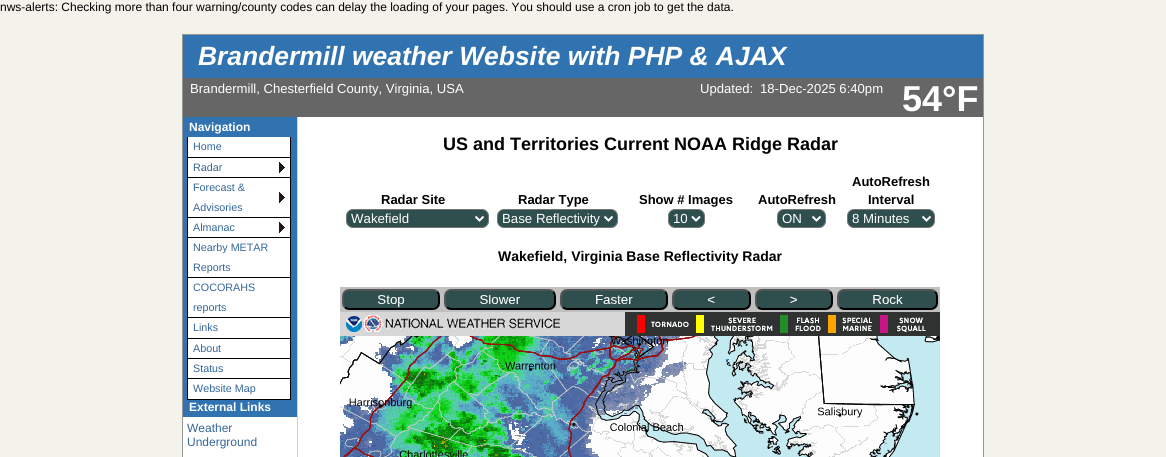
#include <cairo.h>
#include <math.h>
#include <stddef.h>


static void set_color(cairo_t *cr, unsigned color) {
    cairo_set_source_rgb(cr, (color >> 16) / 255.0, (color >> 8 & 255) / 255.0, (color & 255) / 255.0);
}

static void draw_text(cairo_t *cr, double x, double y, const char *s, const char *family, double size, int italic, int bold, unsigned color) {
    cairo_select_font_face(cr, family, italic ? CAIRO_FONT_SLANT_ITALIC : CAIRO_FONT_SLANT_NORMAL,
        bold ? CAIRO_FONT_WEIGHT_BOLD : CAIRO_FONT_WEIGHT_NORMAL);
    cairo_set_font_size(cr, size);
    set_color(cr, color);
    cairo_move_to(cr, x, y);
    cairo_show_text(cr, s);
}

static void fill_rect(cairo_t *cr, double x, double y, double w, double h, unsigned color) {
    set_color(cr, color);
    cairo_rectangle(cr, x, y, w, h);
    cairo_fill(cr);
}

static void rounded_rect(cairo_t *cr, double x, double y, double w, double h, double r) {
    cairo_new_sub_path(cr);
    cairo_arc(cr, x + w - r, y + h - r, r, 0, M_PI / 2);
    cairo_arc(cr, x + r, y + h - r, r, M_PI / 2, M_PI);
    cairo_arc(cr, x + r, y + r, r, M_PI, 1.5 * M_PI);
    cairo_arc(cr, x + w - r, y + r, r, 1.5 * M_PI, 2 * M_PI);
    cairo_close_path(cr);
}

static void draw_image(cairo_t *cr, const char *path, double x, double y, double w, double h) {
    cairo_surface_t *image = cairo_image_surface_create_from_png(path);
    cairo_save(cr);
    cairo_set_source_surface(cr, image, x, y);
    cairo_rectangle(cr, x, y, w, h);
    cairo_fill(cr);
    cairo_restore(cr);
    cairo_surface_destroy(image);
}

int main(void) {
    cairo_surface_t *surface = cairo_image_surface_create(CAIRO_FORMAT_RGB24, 1166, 457);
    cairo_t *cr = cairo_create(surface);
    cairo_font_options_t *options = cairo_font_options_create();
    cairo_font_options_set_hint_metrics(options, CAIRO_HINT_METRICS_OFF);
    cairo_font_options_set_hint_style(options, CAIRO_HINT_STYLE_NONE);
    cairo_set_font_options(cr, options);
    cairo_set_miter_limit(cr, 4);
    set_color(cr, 0xF3F2EB);
    cairo_paint(cr);
    draw_text(cr, 0, 11, "nws-alerts: Checking more than four warning/county codes can delay the loading of your pages. You should use a cron job to get the data.", "Liberation Sans", 12, 0, 0, 0x000000);
    fill_rect(cr, 183, 117, 800, 340, 0xFFFFFF);
    cairo_rectangle(cr, 182.5, 34.5, 801, 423);
    set_color(cr, 0x959596);
    cairo_set_line_width(cr, 1);
    cairo_stroke(cr);
    fill_rect(cr, 183, 35, 800, 43, 0x3173B1);
    draw_text(cr, 198, 65, "Brandermill weather Website with PHP & AJAX", "Liberation Sans", 26.4, 1, 1, 0xFFFFFF);
    fill_rect(cr, 183, 78, 800, 39, 0x666666);
    draw_text(cr, 190, 93, "Brandermill, Chesterfield County, Virginia, USA", "Liberation Sans", 13.1, 0, 0, 0xFFFFFF);
    draw_text(cr, 700, 93, "Updated:", "Liberation Sans", 13.1, 0, 0, 0xFFFFFF);
    draw_text(cr, 760, 93, "18-Dec-2025 6:40pm", "Liberation Sans", 13.1, 0, 0, 0xFFFFFF);
    draw_text(cr, 902, 111, "54°F", "Liberation Sans", 36, 0, 1, 0xFFFFFF);
    fill_rect(cr, 183, 117, 114, 300, 0x3173B1);
    draw_text(cr, 189, 131, "Navigation", "Liberation Sans", 12, 0, 1, 0xFFFFFF);
    fill_rect(cr, 188, 137, 102, 20, 0xFFFFFF);
    fill_rect(cr, 290, 137, 1, 263, 0x000000);
    fill_rect(cr, 187, 157, 104, 1, 0x000000);
    fill_rect(cr, 187, 137, 1, 21, 0x000000);
    draw_text(cr, 193, 150, "Home", "Liberation Sans", 10.75, 0, 0, 0x336699);
    fill_rect(cr, 188, 158, 102, 19, 0xFFFFFF);
    draw_image(cr, "assets/img1.png", 279, 162, 6, 11);
    fill_rect(cr, 187, 177, 104, 1, 0x000000);
    fill_rect(cr, 187, 158, 1, 20, 0x000000);
    draw_text(cr, 193, 171, "Radar", "Liberation Sans", 10.75, 0, 0, 0x336699);
    fill_rect(cr, 188, 178, 102, 39, 0xFFFFFF);
    draw_image(cr, "assets/img1.png", 279, 192, 6, 11);
    fill_rect(cr, 187, 217, 104, 1, 0x000000);
    fill_rect(cr, 187, 178, 1, 40, 0x000000);
    draw_text(cr, 193, 191, "Forecast &", "Liberation Sans", 10.75, 0, 0, 0x336699);
    draw_text(cr, 193, 211, "Advisories", "Liberation Sans", 10.75, 0, 0, 0x336699);
    fill_rect(cr, 188, 218, 102, 19, 0xFFFFFF);
    draw_image(cr, "assets/img1.png", 279, 222, 6, 11);
    fill_rect(cr, 187, 237, 104, 1, 0x000000);
    fill_rect(cr, 187, 218, 1, 20, 0x000000);
    draw_text(cr, 193, 231, "Almanac", "Liberation Sans", 10.75, 0, 0, 0x336699);
    fill_rect(cr, 188, 238, 102, 39, 0xFFFFFF);
    fill_rect(cr, 187, 277, 104, 1, 0x000000);
    fill_rect(cr, 187, 238, 1, 40, 0x000000);
    draw_text(cr, 193, 251, "Nearby METAR", "Liberation Sans", 10.75, 0, 0, 0x336699);
    draw_text(cr, 193, 271, "Reports", "Liberation Sans", 10.75, 0, 0, 0x336699);
    fill_rect(cr, 188, 278, 102, 39, 0xFFFFFF);
    fill_rect(cr, 187, 317, 104, 1, 0x000000);
    fill_rect(cr, 187, 278, 1, 40, 0x000000);
    draw_text(cr, 193, 291, "COCORAHS", "Liberation Sans", 10.75, 0, 0, 0x336699);
    draw_text(cr, 193, 311, "reports", "Liberation Sans", 10.75, 0, 0, 0x336699);
    fill_rect(cr, 188, 318, 102, 20, 0xFFFFFF);
    fill_rect(cr, 187, 338, 104, 1, 0x000000);
    fill_rect(cr, 187, 318, 1, 21, 0x000000);
    draw_text(cr, 193, 331, "Links", "Liberation Sans", 10.75, 0, 0, 0x336699);
    fill_rect(cr, 188, 339, 102, 19, 0xFFFFFF);
    fill_rect(cr, 187, 358, 104, 1, 0x000000);
    fill_rect(cr, 187, 339, 1, 20, 0x000000);
    draw_text(cr, 193, 352, "About", "Liberation Sans", 10.75, 0, 0, 0x336699);
    fill_rect(cr, 188, 359, 102, 19, 0xFFFFFF);
    fill_rect(cr, 187, 378, 104, 1, 0x000000);
    fill_rect(cr, 187, 359, 1, 20, 0x000000);
    draw_text(cr, 193, 372, "Status", "Liberation Sans", 10.75, 0, 0, 0x336699);
    fill_rect(cr, 188, 379, 102, 20, 0xFFFFFF);
    fill_rect(cr, 187, 399, 104, 1, 0x000000);
    fill_rect(cr, 187, 379, 1, 21, 0x000000);
    draw_text(cr, 193, 392, "Website Map", "Liberation Sans", 10.75, 0, 0, 0x336699);
    draw_text(cr, 189, 411, "External Links", "Liberation Sans", 12, 0, 1, 0xFFFFFF);
    draw_text(cr, 187, 432, "Weather", "Liberation Sans", 12, 0, 0, 0x336699);
    draw_text(cr, 187, 446, "Underground", "Liberation Sans", 12, 0, 0, 0x336699);
    fill_rect(cr, 297, 117, 1, 340, 0xD8D2C3);
    draw_text(cr, 443, 150, "US and Territories Current NOAA Ridge Radar", "Liberation Sans", 18, 0, 1, 0x000000);
    draw_text(cr, 381, 204, "Radar Site", "Liberation Sans", 13, 0, 1, 0x000000);
    set_color(cr, 0x2F4F4F);
    rounded_rect(cr, 346.5, 209.5, 142, 18, 6.5);
    cairo_fill_preserve(cr);
    set_color(cr, 0x767676);
    cairo_stroke(cr);
    cairo_new_path(cr);
    cairo_move_to(cr, 475.5, 216.5);
    cairo_line_to(cr, 479.5, 220.5);
    cairo_line_to(cr, 483.5, 216.5);
    set_color(cr, 0xFFFFFF);
    cairo_set_line_width(cr, 2);
    cairo_stroke(cr);
    draw_text(cr, 351, 223, "Wakefield", "Liberation Sans", 13.25, 0, 0, 0xFFFFFF);
    draw_text(cr, 518, 204, "Radar Type", "Liberation Sans", 13, 0, 1, 0x000000);
    set_color(cr, 0x2F4F4F);
    rounded_rect(cr, 497.5, 209.5, 120, 18, 6.5);
    cairo_fill_preserve(cr);
    set_color(cr, 0x767676);
    cairo_set_line_width(cr, 1);
    cairo_stroke(cr);
    cairo_new_path(cr);
    cairo_move_to(cr, 604.5, 216.5);
    cairo_line_to(cr, 608.5, 220.5);
    cairo_line_to(cr, 612.5, 216.5);
    set_color(cr, 0xFFFFFF);
    cairo_set_line_width(cr, 2);
    cairo_stroke(cr);
    draw_text(cr, 502, 223, "Base Reflectivity", "Liberation Sans", 13.25, 0, 0, 0xFFFFFF);
    draw_text(cr, 639, 204, "Show # Images", "Liberation Sans", 13, 0, 1, 0x000000);
    set_color(cr, 0x2F4F4F);
    rounded_rect(cr, 668.5, 209.5, 36, 18, 6.5);
    cairo_fill_preserve(cr);
    set_color(cr, 0x767676);
    cairo_set_line_width(cr, 1);
    cairo_stroke(cr);
    cairo_new_path(cr);
    cairo_move_to(cr, 692, 216.5);
    cairo_line_to(cr, 696, 220.5);
    cairo_line_to(cr, 700, 216.5);
    set_color(cr, 0xFFFFFF);
    cairo_set_line_width(cr, 2);
    cairo_stroke(cr);
    draw_text(cr, 673, 223, "10", "Liberation Sans", 13.25, 0, 0, 0xFFFFFF);
    draw_text(cr, 758, 204, "AutoRefresh", "Liberation Sans", 13, 0, 1, 0x000000);
    set_color(cr, 0x2F4F4F);
    rounded_rect(cr, 777.5, 209.5, 48, 18, 6.5);
    cairo_fill_preserve(cr);
    set_color(cr, 0x767676);
    cairo_set_line_width(cr, 1);
    cairo_stroke(cr);
    cairo_new_path(cr);
    cairo_move_to(cr, 812.5, 216.5);
    cairo_line_to(cr, 816.5, 220.5);
    cairo_line_to(cr, 820.5, 216.5);
    set_color(cr, 0xFFFFFF);
    cairo_set_line_width(cr, 2);
    cairo_stroke(cr);
    draw_text(cr, 782, 223, "ON", "Liberation Sans", 13.25, 0, 0, 0xFFFFFF);
    draw_text(cr, 852, 186, "AutoRefresh", "Liberation Sans", 13, 0, 1, 0x000000);
    draw_text(cr, 868, 204, "Interval", "Liberation Sans", 13, 0, 1, 0x000000);
    set_color(cr, 0x2F4F4F);
    rounded_rect(cr, 847.5, 209.5, 87, 18, 6.5);
    cairo_fill_preserve(cr);
    set_color(cr, 0x767676);
    cairo_set_line_width(cr, 1);
    cairo_stroke(cr);
    cairo_new_path(cr);
    cairo_move_to(cr, 922.5, 216.5);
    cairo_line_to(cr, 926.5, 220.5);
    cairo_line_to(cr, 930.5, 216.5);
    set_color(cr, 0xFFFFFF);
    cairo_set_line_width(cr, 2);
    cairo_stroke(cr);
    draw_text(cr, 852, 223, "8 Minutes", "Liberation Sans", 13.25, 0, 0, 0xFFFFFF);
    draw_text(cr, 498, 261, "Wakefield, Virginia Base Reflectivity Radar", "Liberation Sans", 14, 0, 1, 0x000000);
    draw_image(cr, "assets/img2.png", 340, 287, 600, 170);
    cairo_surface_write_to_png(surface, "output.png");
    cairo_font_options_destroy(options);
    cairo_destroy(cr);
    cairo_surface_destroy(surface);
    return 0;
}
